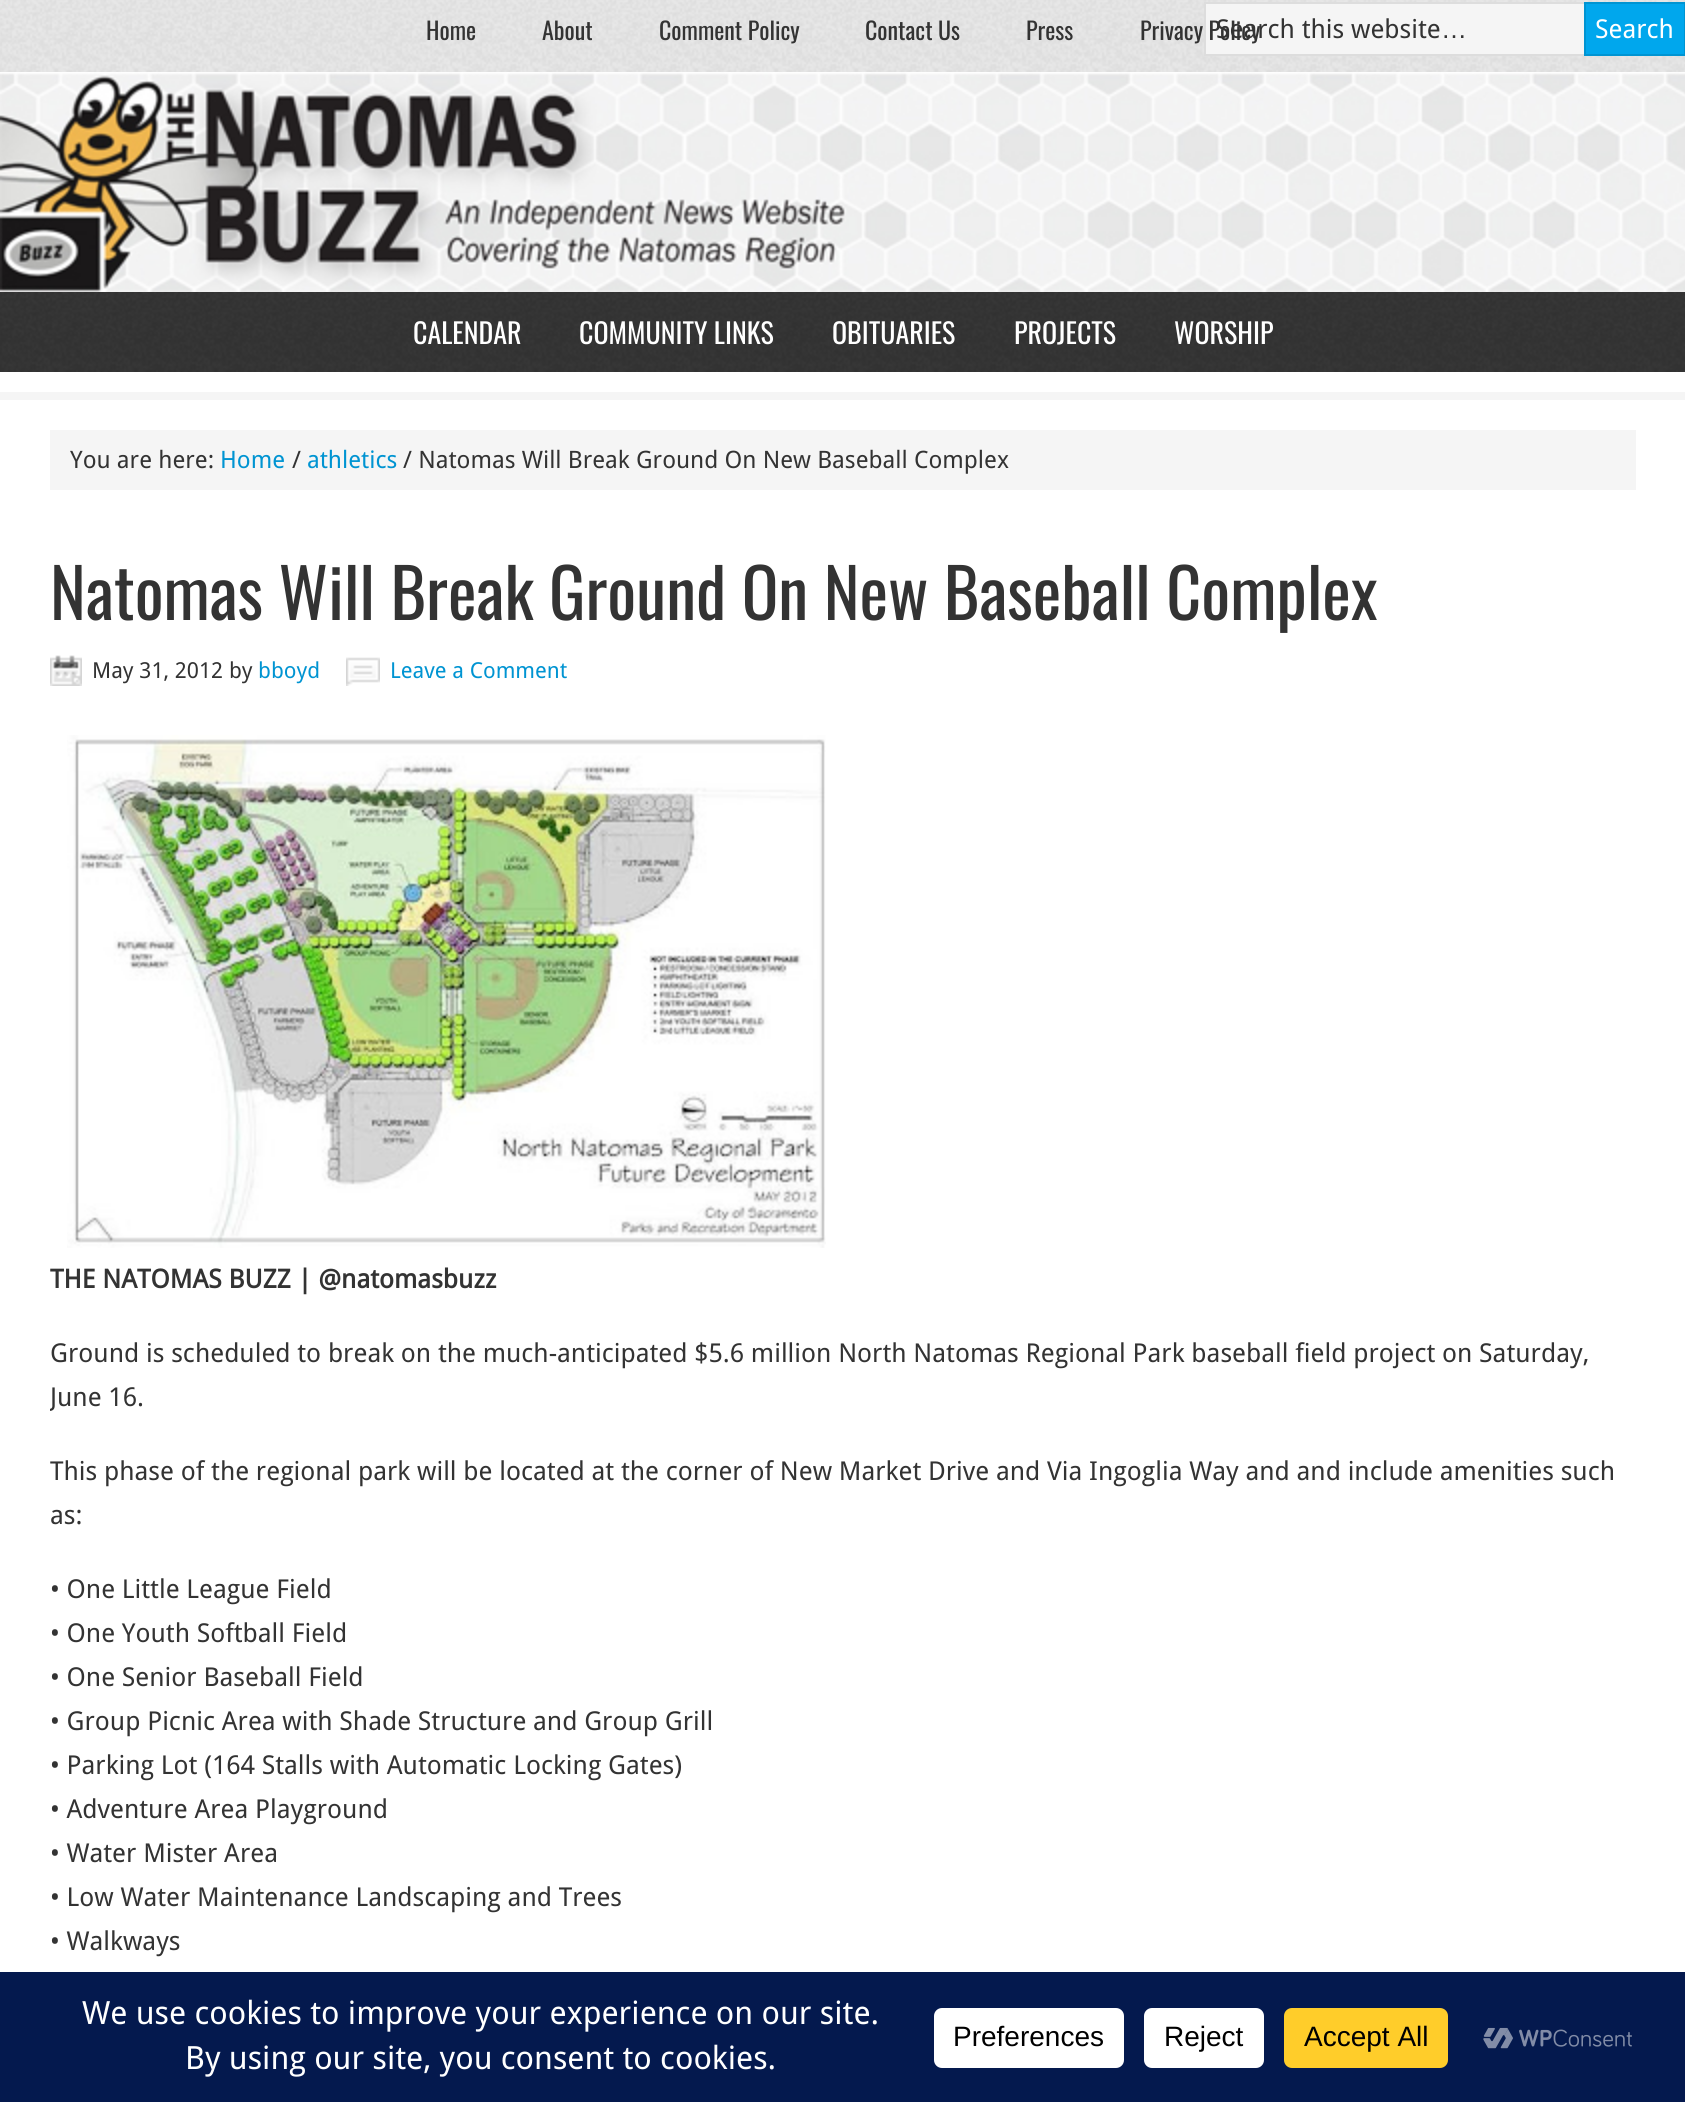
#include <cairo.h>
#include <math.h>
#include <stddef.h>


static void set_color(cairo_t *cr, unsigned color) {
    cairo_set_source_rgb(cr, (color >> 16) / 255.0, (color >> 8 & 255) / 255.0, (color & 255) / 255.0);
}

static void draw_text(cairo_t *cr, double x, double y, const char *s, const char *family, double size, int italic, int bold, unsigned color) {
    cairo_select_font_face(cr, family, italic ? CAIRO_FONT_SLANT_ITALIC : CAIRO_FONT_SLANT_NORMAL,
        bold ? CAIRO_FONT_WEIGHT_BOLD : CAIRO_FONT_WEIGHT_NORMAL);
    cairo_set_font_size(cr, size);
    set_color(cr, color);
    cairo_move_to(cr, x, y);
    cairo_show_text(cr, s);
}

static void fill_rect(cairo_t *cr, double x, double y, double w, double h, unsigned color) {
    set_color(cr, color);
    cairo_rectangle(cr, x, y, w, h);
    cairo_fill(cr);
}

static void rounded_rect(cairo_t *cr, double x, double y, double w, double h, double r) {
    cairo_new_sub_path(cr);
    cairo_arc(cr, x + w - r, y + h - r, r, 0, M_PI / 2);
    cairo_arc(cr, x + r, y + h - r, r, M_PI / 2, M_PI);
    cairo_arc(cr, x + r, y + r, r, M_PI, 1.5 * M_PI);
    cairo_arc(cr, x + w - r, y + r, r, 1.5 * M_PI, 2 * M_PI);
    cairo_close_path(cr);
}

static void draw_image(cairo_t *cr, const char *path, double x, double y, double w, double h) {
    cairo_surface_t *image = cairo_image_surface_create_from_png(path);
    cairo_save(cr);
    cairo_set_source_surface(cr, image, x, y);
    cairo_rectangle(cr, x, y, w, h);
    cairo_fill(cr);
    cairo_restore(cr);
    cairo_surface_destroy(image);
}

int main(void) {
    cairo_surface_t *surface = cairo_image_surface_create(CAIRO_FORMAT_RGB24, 1685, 2102);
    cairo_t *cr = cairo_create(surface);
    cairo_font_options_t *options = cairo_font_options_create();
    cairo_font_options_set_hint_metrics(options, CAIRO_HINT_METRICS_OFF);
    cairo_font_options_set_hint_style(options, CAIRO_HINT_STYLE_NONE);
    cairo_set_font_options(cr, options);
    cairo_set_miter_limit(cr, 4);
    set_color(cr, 0xFFFFFF);
    cairo_paint(cr);
    draw_image(cr, "assets/img1.png", 0, 0, 1685, 72);
    draw_text(cr, 426, 40, "Home", "Oswald", 24, 0, 0, 0x333333);
    draw_text(cr, 542, 40, "About", "Oswald", 24, 0, 0, 0x333333);
    draw_text(cr, 659, 40, "Comment Policy", "Oswald", 24, 0, 0, 0x333333);
    draw_text(cr, 865, 40, "Contact Us", "Oswald", 24, 0, 0, 0x333333);
    draw_text(cr, 1026, 40, "Press", "Oswald", 24, 0, 0, 0x333333);
    fill_rect(cr, 1206, 4, 378, 50, 0xF5F5F5);
    cairo_rectangle(cr, 1205, 3, 382, 52);
    set_color(cr, 0xDDDDDD);
    cairo_stroke(cr);
    draw_text(cr, 1216, 38, "Search this website", "Droid Sans", 26, 0, 0, 0x333333);
    draw_text(cr, 1140, 40, "Privacy Policy", "Oswald", 24, 0, 0, 0x333333);
    draw_text(cr, 1441, 38, "…", "Liberation Sans", 26, 0, 0, 0x333333);
    set_color(cr, 0x00A7ED);
    cairo_rectangle(cr, 1585, 3, 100, 52);
    cairo_fill_preserve(cr);
    set_color(cr, 0x0094D2);
    cairo_stroke(cr);
    draw_text(cr, 1595, 38, "Search", "Droid Sans", 26, 0, 0, 0xFFFFFF);
    draw_image(cr, "assets/img2.png", 0, 72, 1685, 220);
    draw_image(cr, "assets/img3.png", 0, 292, 1685, 80);
    draw_text(cr, 413, 344, "CALENDAR", "Oswald", 28, 0, 0, 0xFFFFFF);
    draw_text(cr, 579, 344, "COMMUNITY LINKS", "Oswald", 28, 0, 0, 0xFFFFFF);
    draw_text(cr, 832, 344, "OBITUARIES", "Oswald", 28, 0, 0, 0xFFFFFF);
    draw_text(cr, 1014, 344, "PROJECTS", "Oswald", 28, 0, 0, 0xFFFFFF);
    draw_text(cr, 1174, 344, "WORSHIP", "Oswald", 28, 0, 0, 0xFFFFFF);
    fill_rect(cr, 0, 392, 1685, 8, 0xF5F5F5);
    fill_rect(cr, 50, 430, 1586, 60, 0xF5F5F5);
    draw_text(cr, 70, 468, "You are here:", "Droid Sans", 24, 0, 0, 0x333333);
    draw_text(cr, 220, 468, "Home", "Droid Sans", 24, 0, 0, 0x0094D2);
    draw_text(cr, 292, 468, "/", "Droid Sans", 24, 0, 0, 0x333333);
    draw_text(cr, 307, 468, "athletics", "Droid Sans", 24, 0, 0, 0x0094D2);
    draw_text(cr, 403, 468, "/ Natomas Will Break Ground On New Baseball Complex", "Droid Sans", 24, 0, 0, 0x333333);
    draw_text(cr, 50, 620, "Natomas Will Break Ground On New Baseball Complex", "Oswald", 68, 0, 0, 0x333333);
    draw_image(cr, "assets/img4.png", 50, 655, 32, 31);
    draw_text(cr, 92, 678, "May 31, 2012 by", "Droid Sans", 22, 0, 0, 0x333333);
    draw_text(cr, 258, 678, "bboyd", "Droid Sans", 22, 0, 0, 0x0094D2);
    draw_image(cr, "assets/img5.png", 346, 657, 34, 29);
    draw_text(cr, 390, 678, "Leave a Comment", "Droid Sans", 22, 0, 0, 0x0094D2);
    draw_image(cr, "assets/img6.png", 67, 735, 759, 513);
    draw_text(cr, 50, 1288, "THE NATOMAS BUZZ | @natomasbuzz", "Droid Sans", 26, 0, 1, 0x333333);
    draw_text(cr, 50, 1362, "Ground is scheduled to break on the much-anticipated $5.6 million North Natomas Regional Park baseball field project on Saturday,", "Droid Sans", 26, 0, 0, 0x333333);
    cairo_save(cr);
    cairo_rectangle(cr, 50, 724, 1586, 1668);
    cairo_clip(cr);
    draw_text(cr, 50, 1406, "June 16.", "Droid Sans", 26, 0, 0, 0x333333);
    cairo_restore(cr);
    draw_text(cr, 50, 1480, "This phase of the regional park will be located at the corner of New Market Drive and Via Ingoglia Way and and include amenities such", "Droid Sans", 26, 0, 0, 0x333333);
    draw_text(cr, 50, 1524, "as:", "Droid Sans", 26, 0, 0, 0x333333);
    draw_text(cr, 50, 1598, "• One Little League Field", "Droid Sans", 26, 0, 0, 0x333333);
    draw_text(cr, 50, 1642, "• One Youth Softball Field", "Droid Sans", 26, 0, 0, 0x333333);
    draw_text(cr, 50, 1686, "• One Senior Baseball Field", "Droid Sans", 26, 0, 0, 0x333333);
    draw_text(cr, 50, 1730, "• Group Picnic Area with Shade Structure and Group Grill", "Droid Sans", 26, 0, 0, 0x333333);
    draw_text(cr, 50, 1774, "• Parking Lot (164 Stalls with Automatic Locking Gates)", "Droid Sans", 26, 0, 0, 0x333333);
    draw_text(cr, 50, 1818, "• Adventure Area Playground", "Droid Sans", 26, 0, 0, 0x333333);
    draw_text(cr, 50, 1862, "• Water Mister Area", "Droid Sans", 26, 0, 0, 0x333333);
    draw_text(cr, 50, 1906, "• Low Water Maintenance Landscaping and Trees", "Droid Sans", 26, 0, 0, 0x333333);
    draw_text(cr, 50, 1950, "• Walkways", "Droid Sans", 26, 0, 0, 0x333333);
    fill_rect(cr, 0, 1972, 1685, 130, 0x04194E);
    draw_text(cr, 82, 2024, "We use cookies to improve your experience on our site.", "Droid Sans", 32, 0, 0, 0xFFFFFF);
    draw_text(cr, 185, 2069, "By using our site, you consent to cookies.", "Droid Sans", 32, 0, 0, 0xFFFFFF);
    rounded_rect(cr, 934, 2008, 190, 60, 8);
    cairo_fill(cr);
    draw_text(cr, 953, 2046, "Preferences", "Liberation Sans", 28, 0, 0, 0x000000);
    set_color(cr, 0xFFFFFF);
    rounded_rect(cr, 1144, 2008, 120, 60, 8);
    cairo_fill(cr);
    draw_text(cr, 1164, 2046, "Reject", "Liberation Sans", 28, 0, 0, 0x000000);
    set_color(cr, 0xFFCD2A);
    rounded_rect(cr, 1284, 2008, 164, 60, 8);
    cairo_fill(cr);
    draw_text(cr, 1304, 2046, "Accept All", "Liberation Sans", 28, 0, 0, 0x000000);
    draw_image(cr, "assets/img7.png", 1483, 2027, 149, 22);
    cairo_surface_write_to_png(surface, "output.png");
    cairo_font_options_destroy(options);
    cairo_destroy(cr);
    cairo_surface_destroy(surface);
    return 0;
}
